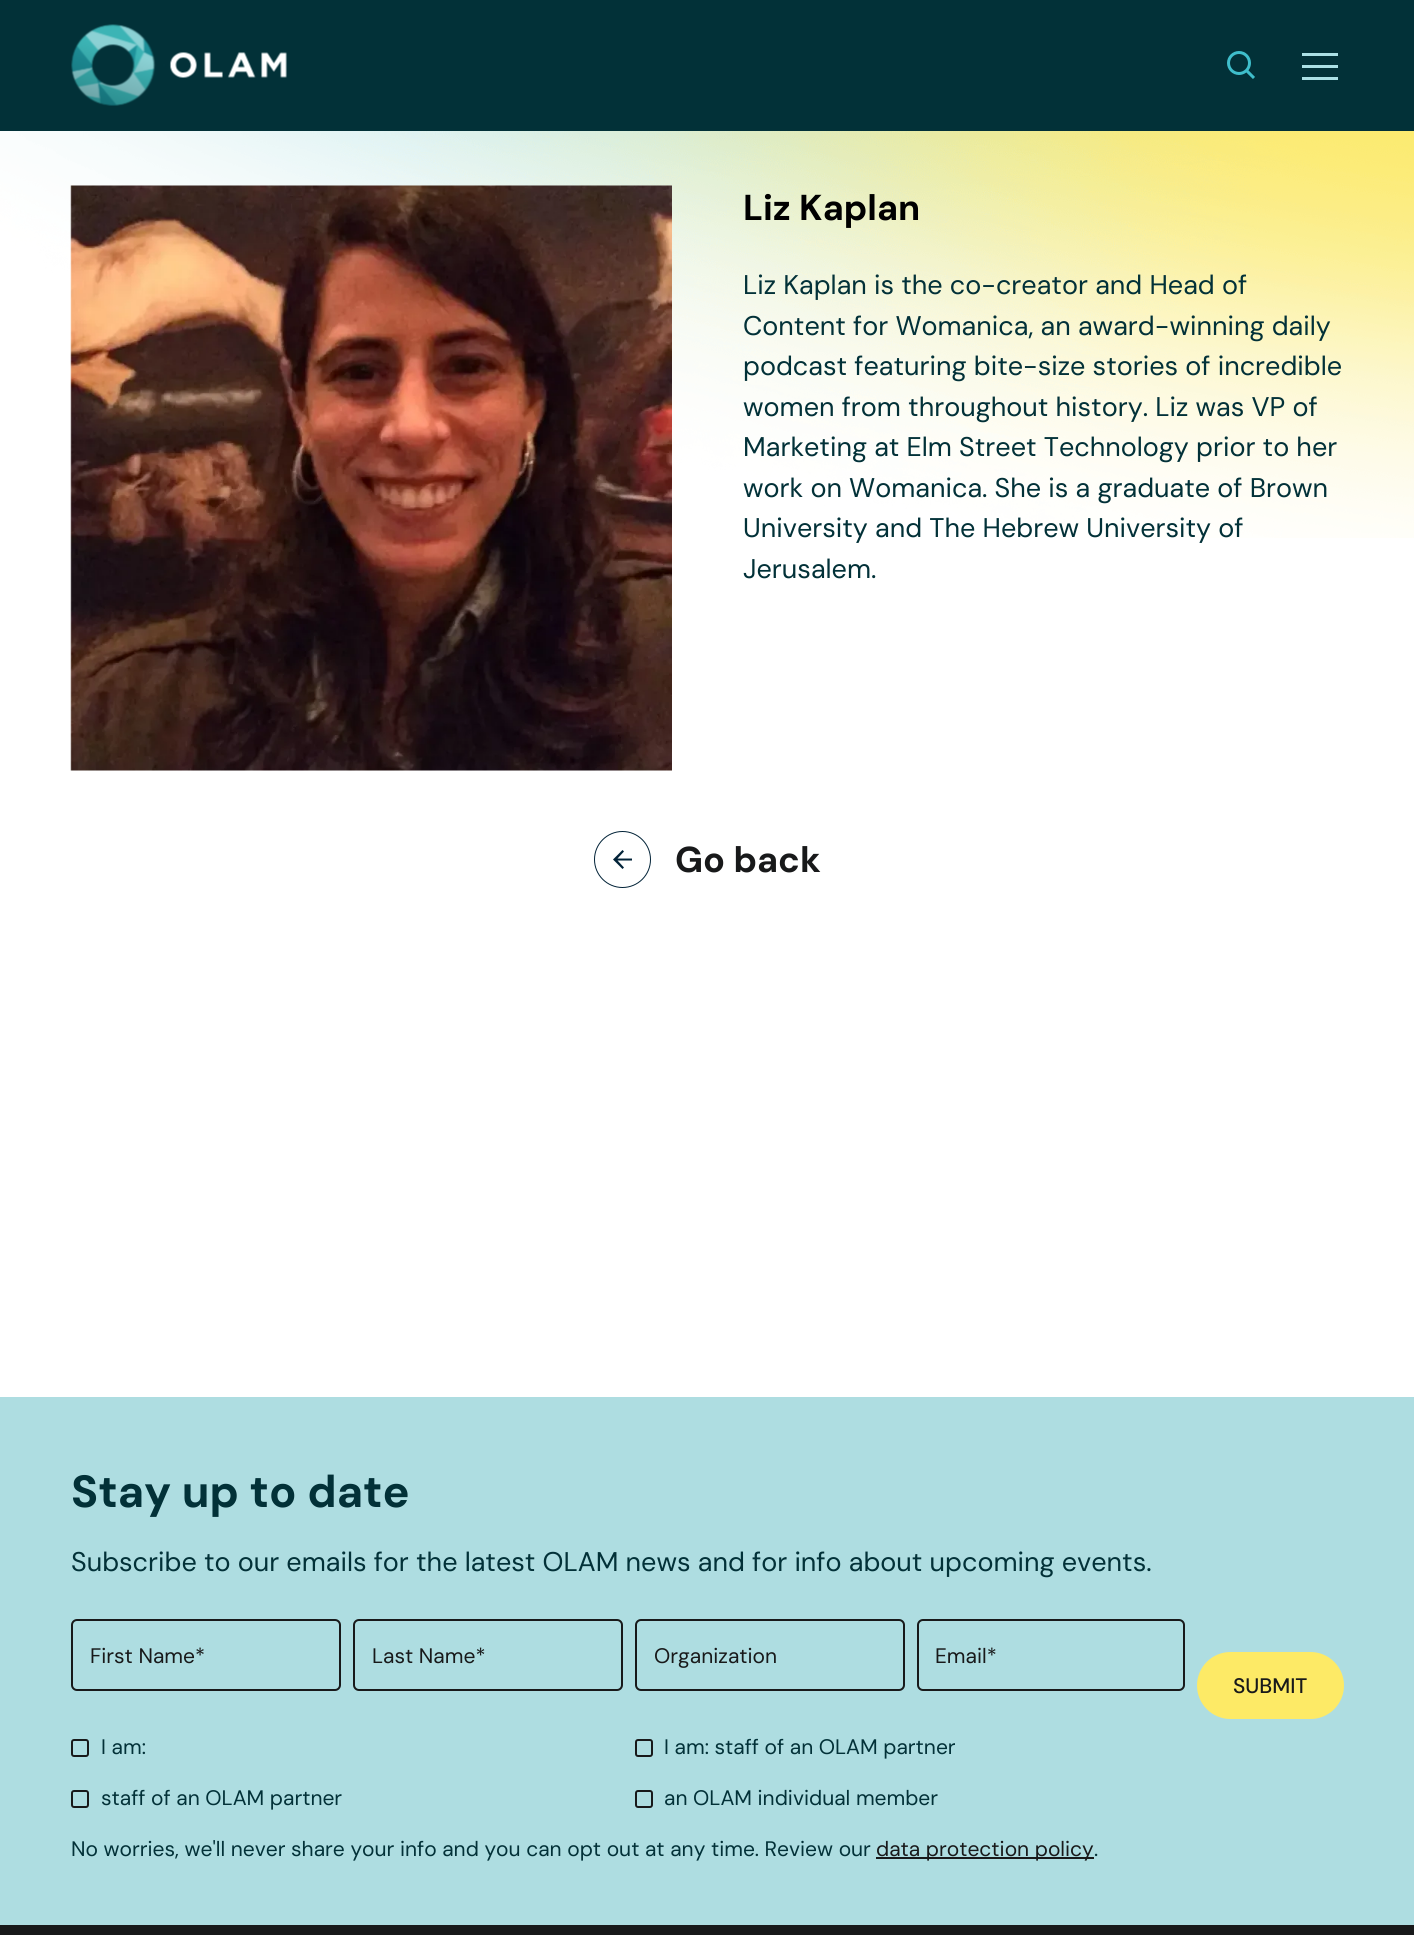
#include <cairo.h>
#include <math.h>
#include <stddef.h>


static void set_color(cairo_t *cr, unsigned color) {
    cairo_set_source_rgb(cr, (color >> 16) / 255.0, (color >> 8 & 255) / 255.0, (color & 255) / 255.0);
}

static void draw_text(cairo_t *cr, double x, double y, const char *s, const char *family, double size, int italic, int bold, unsigned color) {
    cairo_select_font_face(cr, family, italic ? CAIRO_FONT_SLANT_ITALIC : CAIRO_FONT_SLANT_NORMAL,
        bold ? CAIRO_FONT_WEIGHT_BOLD : CAIRO_FONT_WEIGHT_NORMAL);
    cairo_set_font_size(cr, size);
    set_color(cr, color);
    cairo_move_to(cr, x, y);
    cairo_show_text(cr, s);
}

static void fill_rect(cairo_t *cr, double x, double y, double w, double h, unsigned color) {
    set_color(cr, color);
    cairo_rectangle(cr, x, y, w, h);
    cairo_fill(cr);
}

static void rounded_rect(cairo_t *cr, double x, double y, double w, double h, double r) {
    cairo_new_sub_path(cr);
    cairo_arc(cr, x + w - r, y + h - r, r, 0, M_PI / 2);
    cairo_arc(cr, x + r, y + h - r, r, M_PI / 2, M_PI);
    cairo_arc(cr, x + r, y + r, r, M_PI, 1.5 * M_PI);
    cairo_arc(cr, x + w - r, y + r, r, 1.5 * M_PI, 2 * M_PI);
    cairo_close_path(cr);
}

static void draw_image(cairo_t *cr, const char *path, double x, double y, double w, double h) {
    cairo_surface_t *image = cairo_image_surface_create_from_png(path);
    cairo_save(cr);
    cairo_set_source_surface(cr, image, x, y);
    cairo_rectangle(cr, x, y, w, h);
    cairo_fill(cr);
    cairo_restore(cr);
    cairo_surface_destroy(image);
}

int main(void) {
    cairo_surface_t *surface = cairo_image_surface_create(CAIRO_FORMAT_RGB24, 1414, 1935);
    cairo_t *cr = cairo_create(surface);
    cairo_font_options_t *options = cairo_font_options_create();
    cairo_font_options_set_hint_metrics(options, CAIRO_HINT_METRICS_OFF);
    cairo_font_options_set_hint_style(options, CAIRO_HINT_STYLE_NONE);
    cairo_set_font_options(cr, options);
    cairo_set_miter_limit(cr, 4);
    set_color(cr, 0xFFFFFF);
    cairo_paint(cr);
    fill_rect(cr, 0, 0, 1414, 131, 0x023138);
    draw_image(cr, "assets/img1.png", 71, 24, 216, 82);
    draw_image(cr, "assets/img2.png", 1227, 51, 28, 28);
    fill_rect(cr, 1302, 53, 36, 3, 0xABE0E5);
    fill_rect(cr, 1302, 65, 36, 3, 0xABE0E5);
    fill_rect(cr, 1302, 77, 36, 3, 0xABE0E5);
    draw_image(cr, "assets/img3.png", 0, 131, 1414, 407);
    draw_image(cr, "assets/img4.png", 70, 185, 602, 586);
    draw_text(cr, 743, 220, "Liz Kaplan", "DM Sans", 36, 0, 1, 0x000000);
    draw_text(cr, 743, 294, "Liz Kaplan is the co-creator and Head of", "DM Sans", 27, 0, 0, 0x023138);
    draw_text(cr, 743, 335, "Content for Womanica, an award-winning daily", "DM Sans", 27, 0, 0, 0x023138);
    draw_text(cr, 743, 375, "podcast featuring bite-size stories of incredible", "DM Sans", 27, 0, 0, 0x023138);
    draw_text(cr, 743, 416, "women from throughout history. Liz was VP of", "DM Sans", 27, 0, 0, 0x023138);
    draw_text(cr, 743, 456, "Marketing at Elm Street Technology prior to her", "DM Sans", 27, 0, 0, 0x023138);
    draw_text(cr, 743, 497, "work on Womanica. She is a graduate of Brown", "DM Sans", 27, 0, 0, 0x023138);
    draw_text(cr, 743, 537, "University and The Hebrew University of", "DM Sans", 27, 0, 0, 0x023138);
    draw_text(cr, 743, 578, "Jerusalem.", "DM Sans", 27, 0, 0, 0x023138);
    cairo_new_path(cr);
    cairo_arc(cr, 622.5, 859.5, 28, 0, 2 * M_PI);
    set_color(cr, 0x022338);
    cairo_set_line_width(cr, 1);
    cairo_stroke(cr);
    cairo_new_path(cr);
    cairo_move_to(cr, 632, 858.5);
    cairo_line_to(cr, 617.5, 858.5);
    cairo_line_to(cr, 624, 851.5);
    cairo_line_to(cr, 622.5, 850);
    cairo_line_to(cr, 613, 859.5);
    cairo_line_to(cr, 622.5, 869);
    cairo_line_to(cr, 624, 867.5);
    cairo_line_to(cr, 617.5, 860.5);
    cairo_line_to(cr, 632, 860.5);
    cairo_close_path(cr);
    cairo_fill(cr);
    draw_text(cr, 675, 872, "Go back", "DM Sans", 36, 0, 1, 0x18191A);
    fill_rect(cr, 0, 1397, 1414, 528, 0xAEDDE1);
    draw_text(cr, 71, 1507, "Stay up to date", "DM Sans", 45, 0, 1, 0x023138);
    draw_text(cr, 71, 1571, "Subscribe to our emails for the latest OLAM news and for info about upcoming events.", "DM Sans", 27, 0, 0, 0x023138);
    rounded_rect(cr, 72, 1620, 268, 70, 5);
    set_color(cr, 0x18191A);
    cairo_set_line_width(cr, 2);
    cairo_stroke(cr);
    draw_text(cr, 90, 1663, "First Name*", "DM Sans", 21, 0, 0, 0x18191A);
    rounded_rect(cr, 354, 1620, 268, 70, 5);
    cairo_stroke(cr);
    draw_text(cr, 372, 1663, "Last Name*", "DM Sans", 21, 0, 0, 0x18191A);
    rounded_rect(cr, 636, 1620, 268, 70, 5);
    cairo_stroke(cr);
    draw_text(cr, 654, 1663, "Organization", "DM Sans", 21, 0, 0, 0x18191A);
    rounded_rect(cr, 918, 1620, 266, 70, 5);
    cairo_stroke(cr);
    draw_text(cr, 935, 1663, "Email*", "DM Sans", 21, 0, 0, 0x18191A);
    set_color(cr, 0xFDEA66);
    rounded_rect(cr, 1197, 1652, 147, 67, 33.5);
    cairo_fill(cr);
    draw_text(cr, 1233, 1693, "SUBMIT", "DM Sans Medium", 21, 0, 0, 0x18191A);
    rounded_rect(cr, 72, 1740, 16, 16, 2);
    cairo_stroke(cr);
    draw_text(cr, 101, 1754, "I am:", "DM Sans", 21, 0, 0, 0x023138);
    rounded_rect(cr, 636, 1740, 16, 16, 2);
    set_color(cr, 0x18191A);
    cairo_stroke(cr);
    draw_text(cr, 664, 1754, "I am: staff of an OLAM partner", "DM Sans", 21, 0, 0, 0x023138);
    rounded_rect(cr, 72, 1791, 16, 16, 2);
    set_color(cr, 0x18191A);
    cairo_stroke(cr);
    draw_text(cr, 101, 1805, "staff of an OLAM partner", "DM Sans", 21, 0, 0, 0x023138);
    rounded_rect(cr, 636, 1791, 16, 16, 2);
    set_color(cr, 0x18191A);
    cairo_stroke(cr);
    draw_text(cr, 664, 1805, "an OLAM individual member", "DM Sans", 21, 0, 0, 0x023138);
    draw_text(cr, 71, 1856, "No worries, we'll never share your info and you can opt out at any time. Review our", "DM Sans", 21, 0, 0, 0x023138);
    fill_rect(cr, 876, 1857, 218, 2, 0x18191A);
    draw_text(cr, 876, 1856, "data protection policy", "DM Sans", 21, 0, 0, 0x18191A);
    draw_text(cr, 1094, 1856, ".", "DM Sans", 21, 0, 0, 0x023138);
    fill_rect(cr, 0, 1925, 1414, 10, 0x18191A);
    cairo_surface_write_to_png(surface, "output.png");
    cairo_font_options_destroy(options);
    cairo_destroy(cr);
    cairo_surface_destroy(surface);
    return 0;
}
